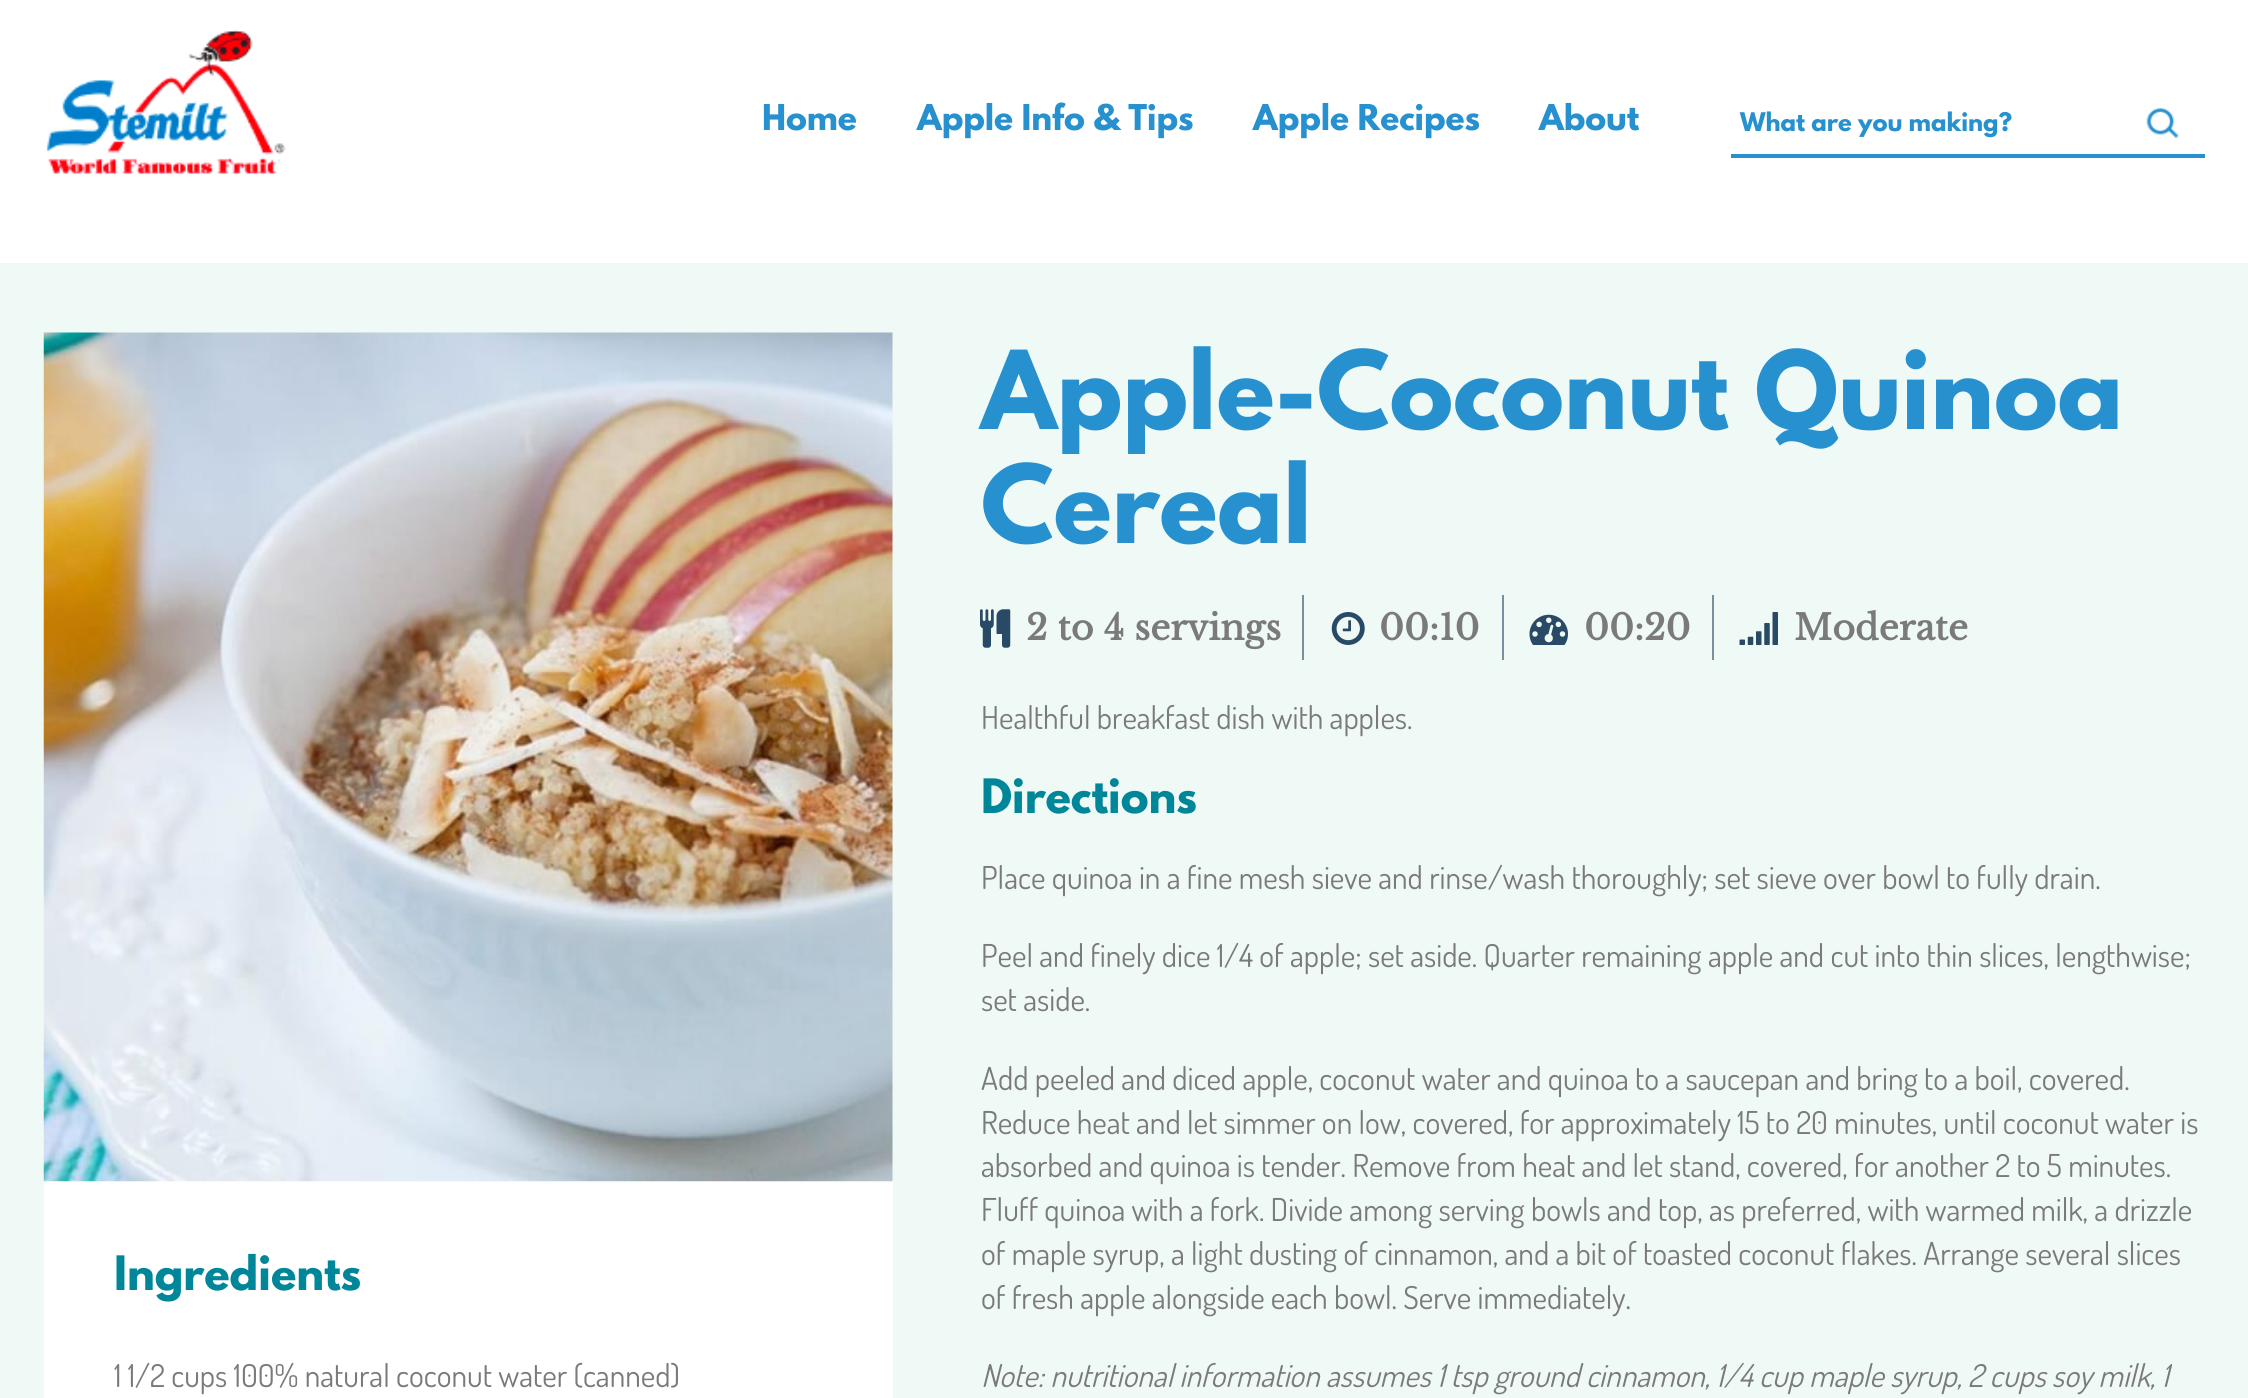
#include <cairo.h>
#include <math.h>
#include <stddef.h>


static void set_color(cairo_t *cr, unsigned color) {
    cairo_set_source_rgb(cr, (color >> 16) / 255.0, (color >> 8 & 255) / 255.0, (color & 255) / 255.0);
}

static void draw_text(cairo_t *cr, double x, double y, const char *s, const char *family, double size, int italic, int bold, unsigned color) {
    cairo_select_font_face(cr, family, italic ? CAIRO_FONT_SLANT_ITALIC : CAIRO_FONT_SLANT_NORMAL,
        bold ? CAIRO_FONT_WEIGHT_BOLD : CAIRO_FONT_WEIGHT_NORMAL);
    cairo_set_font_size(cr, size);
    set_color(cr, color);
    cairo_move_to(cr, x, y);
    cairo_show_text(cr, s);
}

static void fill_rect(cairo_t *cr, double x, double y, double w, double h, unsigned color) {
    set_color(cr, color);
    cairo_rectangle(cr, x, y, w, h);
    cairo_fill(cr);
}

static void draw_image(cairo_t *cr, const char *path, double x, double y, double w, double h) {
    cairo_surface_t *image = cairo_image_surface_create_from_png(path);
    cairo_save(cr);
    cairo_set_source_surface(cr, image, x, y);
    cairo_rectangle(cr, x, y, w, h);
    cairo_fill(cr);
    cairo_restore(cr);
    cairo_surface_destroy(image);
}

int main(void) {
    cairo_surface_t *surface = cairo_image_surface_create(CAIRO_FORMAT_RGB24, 2248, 1398);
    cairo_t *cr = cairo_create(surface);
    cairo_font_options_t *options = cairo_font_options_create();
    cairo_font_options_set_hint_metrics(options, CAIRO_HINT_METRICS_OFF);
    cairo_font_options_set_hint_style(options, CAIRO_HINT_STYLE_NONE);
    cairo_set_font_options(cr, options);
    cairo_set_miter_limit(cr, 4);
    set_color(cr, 0xFFFFFF);
    cairo_paint(cr);
    draw_image(cr, "assets/img1.png", 46, 29, 240, 145);
    draw_text(cr, 762, 130, "Home", "League Spartan", 31.5, 0, 1, 0x2791D0);
    draw_text(cr, 917, 130, "Apple Info & Tips", "League Spartan", 31.5, 0, 1, 0x2791D0);
    draw_text(cr, 1253, 130, "Apple Recipes", "League Spartan", 31.5, 0, 1, 0x2791D0);
    draw_text(cr, 1539, 130, "About", "League Spartan", 31.5, 0, 1, 0x2791D0);
    draw_image(cr, "assets/img2.png", 2146, 107, 34, 32);
    fill_rect(cr, 1731, 154, 474, 4, 0x2791D0);
    draw_text(cr, 1740, 131, "What are you making?", "League Spartan", 22.75, 0, 1, 0x2791D0);
    fill_rect(cr, 0, 263, 2248, 1135, 0xEFF9F5);
    fill_rect(cr, 44, 1181, 849, 217, 0xFFFFFF);
    draw_image(cr, "assets/img3.png", 43, 332, 850, 850);
    draw_text(cr, 114, 1290, "Ingredients", "League Spartan", 42, 0, 1, 0x008699);
    draw_text(cr, 114, 1387, "1 1/2 cups 100% natural coconut water (canned)", "Dosis", 31.5, 0, 0, 0x7A7A7A);
    draw_text(cr, 981, 429, "Apple-Coconut Quinoa", "League Spartan", 96.25, 0, 1, 0x2791D0);
    draw_text(cr, 981, 543, "Cereal", "League Spartan", 96.25, 0, 1, 0x2791D0);
    fill_rect(cr, 1302, 595, 2, 65, 0x7990A0);
    draw_image(cr, "assets/img4.png", 980, 609, 31, 39);
    draw_text(cr, 1026, 640, "2 to 4 servings", "Libre Baskerville", 35, 0, 1, 0x7A7A7A);
    fill_rect(cr, 1502, 595, 2, 65, 0x7990A0);
    draw_image(cr, "assets/img5.png", 1331, 612, 34, 33);
    draw_text(cr, 1379, 640, "00:10", "Libre Baskerville", 35, 0, 1, 0x7A7A7A);
    fill_rect(cr, 1712, 595, 2, 65, 0x7990A0);
    draw_image(cr, "assets/img6.png", 1529, 614, 39, 31);
    draw_text(cr, 1584, 640, "00:20", "Libre Baskerville", 35, 0, 1, 0x7A7A7A);
    draw_image(cr, "assets/img7.png", 1739, 612, 39, 33);
    draw_text(cr, 1794, 640, "Moderate", "Libre Baskerville", 35, 0, 1, 0x7A7A7A);
    draw_text(cr, 981, 729, "Healthful breakfast dish with apples.", "Dosis", 31.5, 0, 0, 0x7A7A7A);
    draw_text(cr, 981, 813, "Directions", "League Spartan", 42, 0, 1, 0x008699);
    draw_text(cr, 981, 889, "Place quinoa in a fine mesh sieve and rinse/wash thoroughly; set sieve over bowl to fully drain.", "Dosis", 31.5, 0, 0, 0x7A7A7A);
    draw_text(cr, 981, 967, "Peel and finely dice 1/4 of apple; set aside. Quarter remaining apple and cut into thin slices, lengthwise;", "Dosis", 31.5, 0, 0, 0x7A7A7A);
    draw_text(cr, 981, 1011, "set aside.", "Dosis", 31.5, 0, 0, 0x7A7A7A);
    draw_text(cr, 981, 1090, "Add peeled and diced apple, coconut water and quinoa to a saucepan and bring to a boil, covered.", "Dosis", 31.5, 0, 0, 0x7A7A7A);
    draw_text(cr, 981, 1134, "Reduce heat and let simmer on low, covered, for approximately 15 to 20 minutes, until coconut water is", "Dosis", 31.5, 0, 0, 0x7A7A7A);
    draw_text(cr, 981, 1177, "absorbed and quinoa is tender. Remove from heat and let stand, covered, for another 2 to 5 minutes.", "Dosis", 31.5, 0, 0, 0x7A7A7A);
    draw_text(cr, 981, 1221, "Fluff quinoa with a fork. Divide among serving bowls and top, as preferred, with warmed milk, a drizzle", "Dosis", 31.5, 0, 0, 0x7A7A7A);
    draw_text(cr, 981, 1265, "of maple syrup, a light dusting of cinnamon, and a bit of toasted coconut flakes. Arrange several slices", "Dosis", 31.5, 0, 0, 0x7A7A7A);
    draw_text(cr, 981, 1309, "of fresh apple alongside each bowl. Serve immediately.", "Dosis", 31.5, 0, 0, 0x7A7A7A);
    draw_text(cr, 981, 1387, "Note: nutritional information assumes 1 tsp ground cinnamon, 1/4 cup maple syrup, 2 cups soy milk, 1", "Dosis", 31.5, 1, 0, 0x7A7A7A);
    cairo_surface_write_to_png(surface, "output.png");
    cairo_font_options_destroy(options);
    cairo_destroy(cr);
    cairo_surface_destroy(surface);
    return 0;
}
